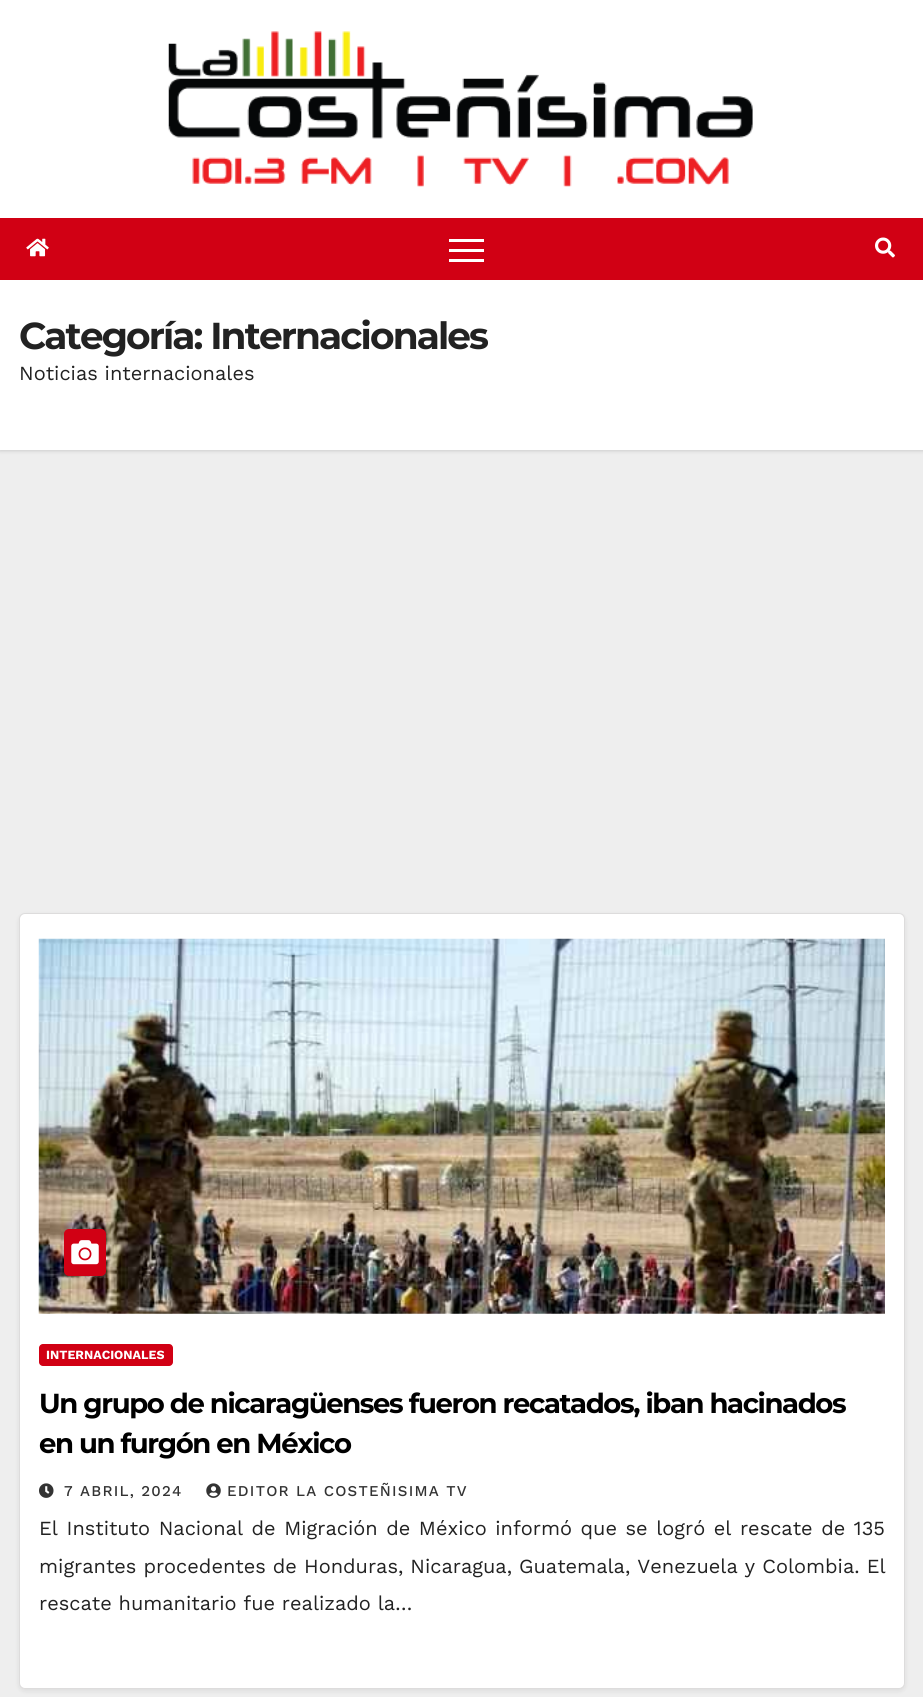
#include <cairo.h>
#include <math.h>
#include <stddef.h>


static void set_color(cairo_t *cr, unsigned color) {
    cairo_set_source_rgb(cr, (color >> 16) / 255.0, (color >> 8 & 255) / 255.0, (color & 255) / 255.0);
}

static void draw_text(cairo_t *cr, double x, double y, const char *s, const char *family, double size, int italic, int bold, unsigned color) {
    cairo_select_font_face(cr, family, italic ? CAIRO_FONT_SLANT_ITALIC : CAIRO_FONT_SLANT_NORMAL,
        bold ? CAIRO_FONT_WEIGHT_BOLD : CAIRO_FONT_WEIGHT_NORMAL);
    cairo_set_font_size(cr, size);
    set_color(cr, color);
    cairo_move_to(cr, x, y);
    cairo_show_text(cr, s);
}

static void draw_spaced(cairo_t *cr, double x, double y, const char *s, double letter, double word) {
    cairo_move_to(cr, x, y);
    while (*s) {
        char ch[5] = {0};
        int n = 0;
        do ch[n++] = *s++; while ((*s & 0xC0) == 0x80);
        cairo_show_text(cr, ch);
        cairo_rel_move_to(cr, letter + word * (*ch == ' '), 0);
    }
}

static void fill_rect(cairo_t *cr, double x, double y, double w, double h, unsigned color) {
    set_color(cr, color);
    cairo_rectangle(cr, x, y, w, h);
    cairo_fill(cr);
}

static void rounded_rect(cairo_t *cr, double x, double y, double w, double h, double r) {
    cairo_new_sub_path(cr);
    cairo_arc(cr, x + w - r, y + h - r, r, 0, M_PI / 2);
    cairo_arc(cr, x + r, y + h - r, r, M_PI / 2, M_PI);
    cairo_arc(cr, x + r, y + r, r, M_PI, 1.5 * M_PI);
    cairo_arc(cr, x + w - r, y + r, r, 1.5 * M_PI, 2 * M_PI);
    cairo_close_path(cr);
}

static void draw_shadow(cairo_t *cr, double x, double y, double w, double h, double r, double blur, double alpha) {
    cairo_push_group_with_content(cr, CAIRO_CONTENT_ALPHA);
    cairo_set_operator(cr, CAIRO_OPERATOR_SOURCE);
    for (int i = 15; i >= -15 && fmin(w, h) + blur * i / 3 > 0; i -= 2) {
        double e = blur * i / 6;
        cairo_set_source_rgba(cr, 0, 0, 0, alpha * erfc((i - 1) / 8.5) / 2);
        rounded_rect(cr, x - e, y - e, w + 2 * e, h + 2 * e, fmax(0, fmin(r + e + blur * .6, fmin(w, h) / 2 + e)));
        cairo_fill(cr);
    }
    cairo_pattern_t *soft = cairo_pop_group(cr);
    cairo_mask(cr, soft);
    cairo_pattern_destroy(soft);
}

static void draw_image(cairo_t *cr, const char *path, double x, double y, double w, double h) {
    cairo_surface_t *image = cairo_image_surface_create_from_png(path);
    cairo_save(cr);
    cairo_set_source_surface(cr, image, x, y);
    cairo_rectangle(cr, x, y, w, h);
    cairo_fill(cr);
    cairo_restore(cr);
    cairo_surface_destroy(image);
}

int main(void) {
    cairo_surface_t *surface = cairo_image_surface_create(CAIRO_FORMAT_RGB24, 923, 1697);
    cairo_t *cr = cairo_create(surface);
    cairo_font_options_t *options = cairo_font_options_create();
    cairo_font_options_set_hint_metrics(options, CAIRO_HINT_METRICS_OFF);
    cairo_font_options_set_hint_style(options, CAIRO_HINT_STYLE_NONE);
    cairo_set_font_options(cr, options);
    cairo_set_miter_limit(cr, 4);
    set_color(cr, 0xEEEEEE);
    cairo_paint(cr);
    fill_rect(cr, 0, 0, 923, 218, 0xFFFFFF);
    draw_image(cr, "assets/img1.png", 168, 31, 585, 156);
    set_color(cr, 0x000000);
    draw_shadow(cr, 0, 281, 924, 170, 0, 2, 0.15);
    fill_rect(cr, 0, 218, 923, 62, 0xD10014);
    draw_image(cr, "assets/img2.png", 26, 238, 23, 19);
    fill_rect(cr, 449, 239, 35, 3, 0xFFFFFF);
    fill_rect(cr, 449, 249, 35, 3, 0xFFFFFF);
    fill_rect(cr, 449, 259, 35, 3, 0xFFFFFF);
    draw_image(cr, "assets/img3.png", 875, 237, 20, 21);
    fill_rect(cr, 0, 280, 923, 170, 0xFFFFFF);
    cairo_select_font_face(cr, "Montserrat", CAIRO_FONT_SLANT_NORMAL, CAIRO_FONT_WEIGHT_BOLD);
    cairo_set_font_size(cr, 37.5);
    set_color(cr, 0x222222);
    draw_spaced(cr, 19, 349, "Categoría: Internacionales", -1.9, 0);
    draw_text(cr, 19, 380, "Noticias internacionales", "Work Sans", 20, 0, 0, 0x222222);
    set_color(cr, 0x000000);
    draw_shadow(cr, 19, 915, 886, 776, 6, 2.5, 0.08);
    set_color(cr, 0xFFFFFF);
    rounded_rect(cr, 19.5, 913.5, 885, 775, 5.5);
    cairo_fill_preserve(cr);
    set_color(cr, 0xDDDCDC);
    cairo_set_line_width(cr, 1);
    cairo_stroke(cr);
    draw_image(cr, "assets/img4.png", 38, 938, 847, 376);
    set_color(cr, 0xD10014);
    rounded_rect(cr, 64, 1229, 42, 47, 5);
    cairo_fill(cr);
    draw_image(cr, "assets/img5.png", 71, 1240, 28, 25);
    rounded_rect(cr, 39, 1344, 134, 22, 4);
    cairo_fill(cr);
    draw_text(cr, 46, 1359, "INTERNACIONALES", "Work Sans", 12.5, 0, 1, 0xFFFFFF);
    cairo_select_font_face(cr, "Montserrat", CAIRO_FONT_SLANT_NORMAL, CAIRO_FONT_WEIGHT_BOLD);
    cairo_set_font_size(cr, 27.5);
    set_color(cr, 0x000000);
    draw_spaced(cr, 39, 1413, "Un grupo de nicaragüenses fueron recatados, iban hacinados", -1.38, 0);
    draw_spaced(cr, 39, 1453, "en un furgón en México", -1.38, 0);
    draw_image(cr, "assets/img6.png", 39, 1483, 15, 15);
    cairo_select_font_face(cr, "Work Sans Medium", CAIRO_FONT_SLANT_NORMAL, CAIRO_FONT_WEIGHT_NORMAL);
    cairo_set_font_size(cr, 15);
    set_color(cr, 0x333333);
    draw_spaced(cr, 64, 1496, "7 ABRIL, 2024", 1.25, 0);
    draw_image(cr, "assets/img7.png", 206, 1483, 15, 15);
    draw_spaced(cr, 227, 1496, "EDITOR LA COSTEÑISIMA TV", 1.25, 0);
    cairo_select_font_face(cr, "Work Sans", CAIRO_FONT_SLANT_NORMAL, CAIRO_FONT_WEIGHT_NORMAL);
    cairo_set_font_size(cr, 20);
    set_color(cr, 0x222222);
    draw_spaced(cr, 39, 1535, "El Instituto Nacional de Migración de México informó que se logró el rescate de 135", 0, 1.75);
    draw_spaced(cr, 39, 1573, "migrantes procedentes de Honduras, Nicaragua, Guatemala, Venezuela y Colombia. El", 0, 0.25);
    draw_text(cr, 39, 1610, "rescate humanitario fue realizado la…", "Work Sans", 20, 0, 0, 0x222222);
    cairo_surface_write_to_png(surface, "output.png");
    cairo_font_options_destroy(options);
    cairo_destroy(cr);
    cairo_surface_destroy(surface);
    return 0;
}
